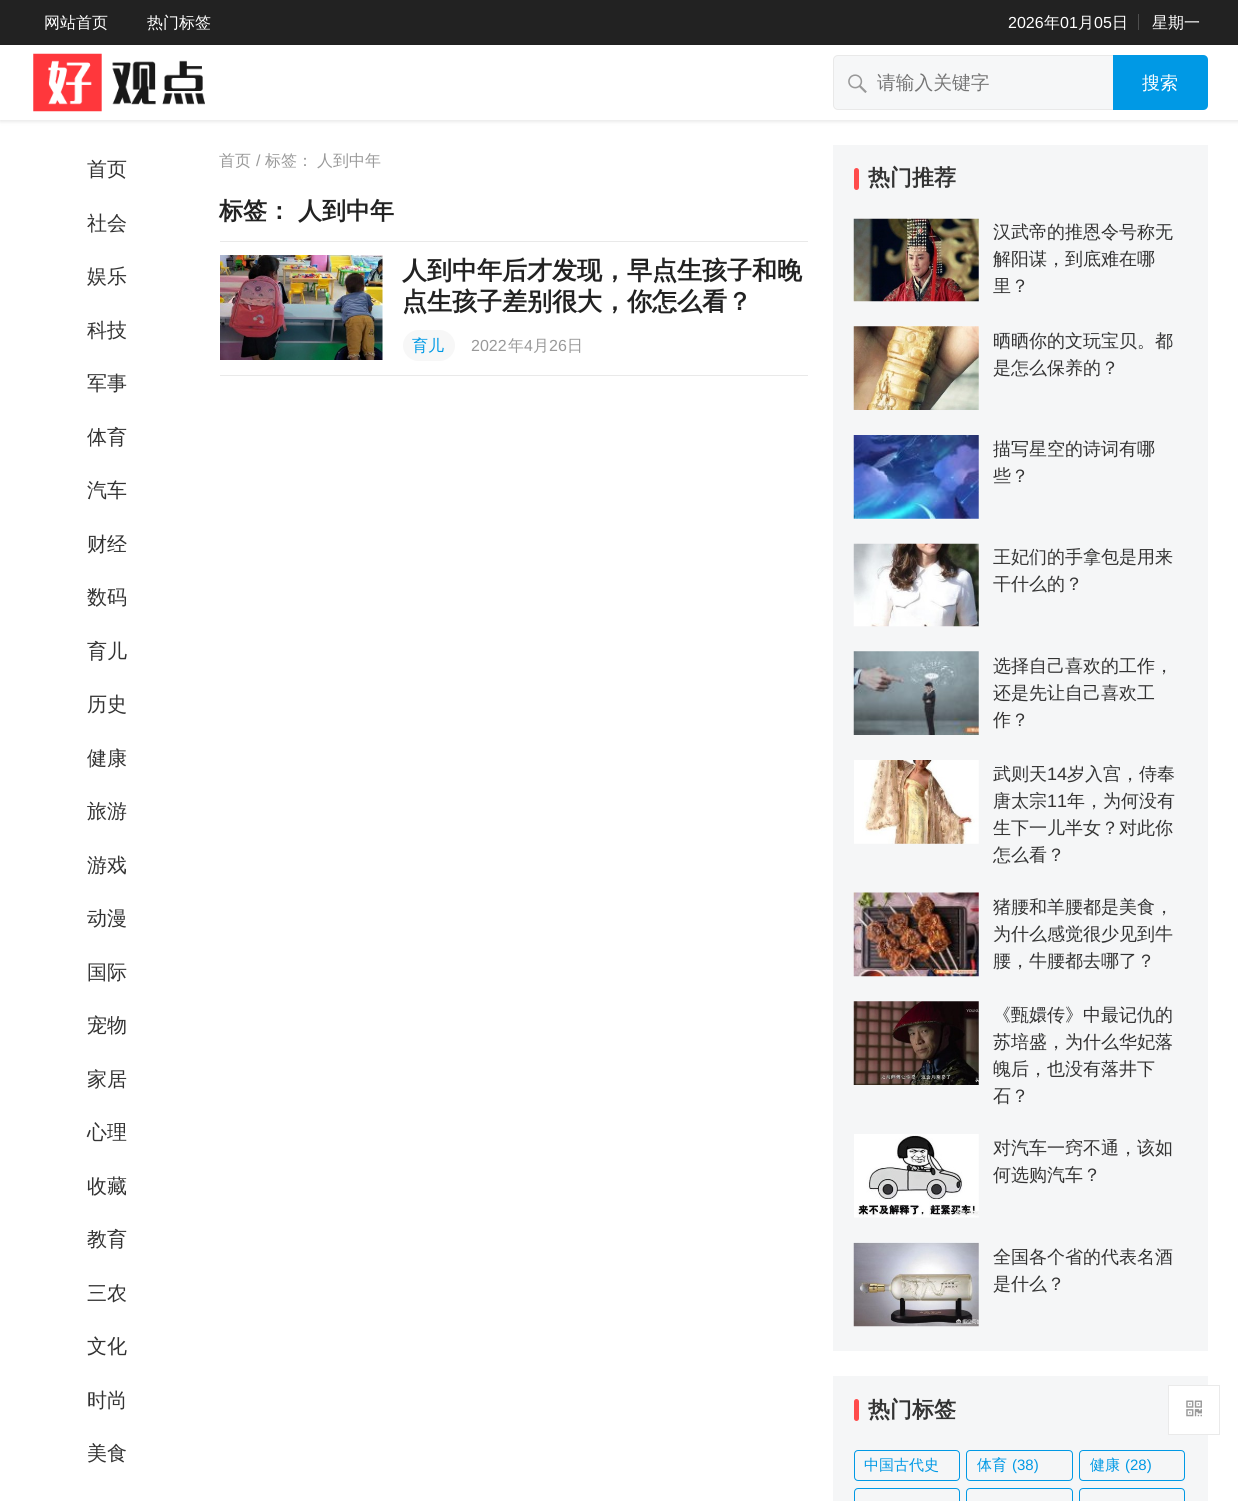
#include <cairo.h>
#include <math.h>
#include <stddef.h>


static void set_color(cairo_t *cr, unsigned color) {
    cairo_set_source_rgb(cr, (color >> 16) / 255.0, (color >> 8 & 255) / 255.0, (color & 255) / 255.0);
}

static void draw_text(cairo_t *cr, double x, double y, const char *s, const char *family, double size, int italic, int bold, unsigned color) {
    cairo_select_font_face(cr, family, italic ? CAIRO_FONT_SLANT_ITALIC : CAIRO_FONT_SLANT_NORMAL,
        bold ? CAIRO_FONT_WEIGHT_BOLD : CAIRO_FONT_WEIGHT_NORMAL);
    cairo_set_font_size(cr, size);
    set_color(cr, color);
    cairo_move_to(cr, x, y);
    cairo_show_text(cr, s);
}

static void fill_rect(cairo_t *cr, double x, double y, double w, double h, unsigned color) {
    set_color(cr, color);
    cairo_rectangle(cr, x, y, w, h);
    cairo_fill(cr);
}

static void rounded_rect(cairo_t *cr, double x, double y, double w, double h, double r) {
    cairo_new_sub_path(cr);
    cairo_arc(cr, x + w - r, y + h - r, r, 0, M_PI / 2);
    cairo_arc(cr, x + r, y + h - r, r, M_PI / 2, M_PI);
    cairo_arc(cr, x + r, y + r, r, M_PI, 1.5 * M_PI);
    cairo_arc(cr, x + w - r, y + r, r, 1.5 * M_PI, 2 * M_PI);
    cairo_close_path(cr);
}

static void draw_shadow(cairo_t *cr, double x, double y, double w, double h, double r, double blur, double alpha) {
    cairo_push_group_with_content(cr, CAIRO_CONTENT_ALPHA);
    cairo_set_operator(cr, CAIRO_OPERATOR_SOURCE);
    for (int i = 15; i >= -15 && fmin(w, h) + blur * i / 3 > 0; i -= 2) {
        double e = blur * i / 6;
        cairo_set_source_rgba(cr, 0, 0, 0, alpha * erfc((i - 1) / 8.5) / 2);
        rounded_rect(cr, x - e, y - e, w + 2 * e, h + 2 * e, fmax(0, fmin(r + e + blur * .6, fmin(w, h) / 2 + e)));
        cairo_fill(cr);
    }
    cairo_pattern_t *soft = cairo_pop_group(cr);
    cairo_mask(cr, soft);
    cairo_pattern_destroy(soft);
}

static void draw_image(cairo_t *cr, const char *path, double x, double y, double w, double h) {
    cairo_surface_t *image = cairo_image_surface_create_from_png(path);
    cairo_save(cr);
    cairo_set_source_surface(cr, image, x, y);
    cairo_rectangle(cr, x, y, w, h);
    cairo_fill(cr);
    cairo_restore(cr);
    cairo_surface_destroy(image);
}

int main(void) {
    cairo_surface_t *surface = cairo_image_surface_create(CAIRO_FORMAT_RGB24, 1238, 1501);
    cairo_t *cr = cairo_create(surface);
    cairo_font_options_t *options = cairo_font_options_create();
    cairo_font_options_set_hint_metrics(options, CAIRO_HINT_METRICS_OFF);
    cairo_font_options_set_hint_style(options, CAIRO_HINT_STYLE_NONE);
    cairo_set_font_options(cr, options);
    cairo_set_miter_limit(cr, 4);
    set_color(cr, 0xFFFFFF);
    cairo_paint(cr);
    fill_rect(cr, 0, 0, 1238, 45, 0x222222);
    draw_text(cr, 44, 28, "网站首页", "WenQuanYi Zen Hei Medium", 16, 0, 0, 0xFFFFFF);
    draw_text(cr, 147, 28, "热门标签", "WenQuanYi Zen Hei Medium", 16, 0, 0, 0xFFFFFF);
    fill_rect(cr, 1138, 14, 1, 16, 0x4E4E4E);
    draw_text(cr, 1008, 28, "2026", "Liberation Sans", 16, 0, 0, 0xFFFFFF);
    draw_text(cr, 1044, 28, "年", "WenQuanYi Zen Hei Medium", 16, 0, 0, 0xFFFFFF);
    draw_text(cr, 1060, 28, "01", "Liberation Sans", 16, 0, 0, 0xFFFFFF);
    draw_text(cr, 1078, 28, "月", "WenQuanYi Zen Hei Medium", 16, 0, 0, 0xFFFFFF);
    draw_text(cr, 1094, 28, "05", "Liberation Sans", 16, 0, 0, 0xFFFFFF);
    draw_text(cr, 1112, 28, "日", "WenQuanYi Zen Hei Medium", 16, 0, 0, 0xFFFFFF);
    draw_text(cr, 1152, 28, "星期一", "WenQuanYi Zen Hei Medium", 16, 0, 0, 0xFFFFFF);
    cairo_save(cr);
    cairo_set_fill_rule(cr, CAIRO_FILL_RULE_EVEN_ODD);
    cairo_new_path(cr);
    cairo_move_to(cr, 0, 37);
    cairo_line_to(cr, 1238, 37);
    cairo_line_to(cr, 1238, 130);
    cairo_line_to(cr, 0, 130);
    cairo_close_path(cr);
    cairo_move_to(cr, 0, 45);
    cairo_line_to(cr, 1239, 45);
    cairo_line_to(cr, 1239, 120);
    cairo_line_to(cr, 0, 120);
    cairo_close_path(cr);
    cairo_clip(cr);
    set_color(cr, 0x000000);
    draw_shadow(cr, 0, 46, 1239, 75, 0, 2.5, 0.12);
    cairo_restore(cr);
    draw_image(cr, "assets/img1.png", 33, 53, 172, 59);
    set_color(cr, 0xF6F7F8);
    rounded_rect(cr, 833.5, 55.5, 374, 54, 4.5);
    cairo_fill_preserve(cr);
    set_color(cr, 0xE9E9E9);
    cairo_set_line_width(cr, 1);
    cairo_stroke(cr);
    draw_image(cr, "assets/img2.png", 848, 74, 19, 19);
    draw_text(cr, 877, 89, "请输入关键字", "WenQuanYi Zen Hei Medium", 18.75, 0, 0, 0x757575);
    set_color(cr, 0x0099E5);
    cairo_new_path(cr);
    cairo_move_to(cr, 1113, 55);
    cairo_line_to(cr, 1203, 55);
    cairo_curve_to(cr, 1206, 55, 1208, 57, 1208, 60);
    cairo_line_to(cr, 1208, 105);
    cairo_curve_to(cr, 1208, 108, 1206, 110, 1203, 110);
    cairo_line_to(cr, 1113, 110);
    cairo_close_path(cr);
    cairo_fill(cr);
    draw_text(cr, 1142, 89, "搜索", "WenQuanYi Zen Hei Medium", 18, 0, 0, 0xFFFFFF);
    draw_text(cr, 87, 176, "首页", "WenQuanYi Zen Hei Medium", 20, 0, 0, 0x333333);
    draw_text(cr, 87, 230, "社会", "WenQuanYi Zen Hei Medium", 20, 0, 0, 0x333333);
    draw_text(cr, 87, 283, "娱乐", "WenQuanYi Zen Hei Medium", 20, 0, 0, 0x333333);
    draw_text(cr, 87, 337, "科技", "WenQuanYi Zen Hei Medium", 20, 0, 0, 0x333333);
    draw_text(cr, 87, 390, "军事", "WenQuanYi Zen Hei Medium", 20, 0, 0, 0x333333);
    draw_text(cr, 87, 444, "体育", "WenQuanYi Zen Hei Medium", 20, 0, 0, 0x333333);
    draw_text(cr, 87, 497, "汽车", "WenQuanYi Zen Hei Medium", 20, 0, 0, 0x333333);
    draw_text(cr, 87, 551, "财经", "WenQuanYi Zen Hei Medium", 20, 0, 0, 0x333333);
    draw_text(cr, 87, 604, "数码", "WenQuanYi Zen Hei Medium", 20, 0, 0, 0x333333);
    draw_text(cr, 87, 658, "育儿", "WenQuanYi Zen Hei Medium", 20, 0, 0, 0x333333);
    draw_text(cr, 87, 711, "历史", "WenQuanYi Zen Hei Medium", 20, 0, 0, 0x333333);
    draw_text(cr, 87, 765, "健康", "WenQuanYi Zen Hei Medium", 20, 0, 0, 0x333333);
    draw_text(cr, 87, 818, "旅游", "WenQuanYi Zen Hei Medium", 20, 0, 0, 0x333333);
    draw_text(cr, 87, 872, "游戏", "WenQuanYi Zen Hei Medium", 20, 0, 0, 0x333333);
    draw_text(cr, 87, 925, "动漫", "WenQuanYi Zen Hei Medium", 20, 0, 0, 0x333333);
    draw_text(cr, 87, 979, "国际", "WenQuanYi Zen Hei Medium", 20, 0, 0, 0x333333);
    draw_text(cr, 87, 1032, "宠物", "WenQuanYi Zen Hei Medium", 20, 0, 0, 0x333333);
    draw_text(cr, 87, 1086, "家居", "WenQuanYi Zen Hei Medium", 20, 0, 0, 0x333333);
    draw_text(cr, 87, 1139, "心理", "WenQuanYi Zen Hei Medium", 20, 0, 0, 0x333333);
    draw_text(cr, 87, 1193, "收藏", "WenQuanYi Zen Hei Medium", 20, 0, 0, 0x333333);
    draw_text(cr, 87, 1246, "教育", "WenQuanYi Zen Hei Medium", 20, 0, 0, 0x333333);
    draw_text(cr, 87, 1300, "三农", "WenQuanYi Zen Hei Medium", 20, 0, 0, 0x333333);
    draw_text(cr, 87, 1353, "文化", "WenQuanYi Zen Hei Medium", 20, 0, 0, 0x333333);
    draw_text(cr, 87, 1407, "时尚", "WenQuanYi Zen Hei Medium", 20, 0, 0, 0x333333);
    draw_text(cr, 87, 1460, "美食", "WenQuanYi Zen Hei Medium", 20, 0, 0, 0x333333);
    fill_rect(cr, 220, 241, 588, 1, 0xE9E9E9);
    draw_text(cr, 219, 166, "首页", "WenQuanYi Zen Hei Medium", 16, 0, 0, 0x999999);
    draw_text(cr, 256, 166, "/", "Liberation Sans", 16, 0, 0, 0x999999);
    draw_text(cr, 265, 166, "标签：", "WenQuanYi Zen Hei Medium", 16, 0, 0, 0x999999);
    draw_text(cr, 317, 166, "人到中年", "WenQuanYi Zen Hei Medium", 16, 0, 0, 0x999999);
    draw_text(cr, 219, 219, "标签：", "WenQuanYi Zen Hei", 24, 0, 1, 0x222222);
    draw_text(cr, 298, 219, "人到中年", "WenQuanYi Zen Hei", 24, 0, 1, 0x222222);
    fill_rect(cr, 220, 375, 588, 1, 0xE9E9E9);
    draw_image(cr, "assets/img3.png", 220, 255, 163, 105);
    draw_text(cr, 402, 279, "人到中年后才发现，早点生孩子和晚", "WenQuanYi Zen Hei", 25, 0, 1, 0x222222);
    draw_text(cr, 402, 310, "点生孩子差别很大，你怎么看？", "WenQuanYi Zen Hei", 25, 0, 1, 0x222222);
    set_color(cr, 0xF7F7F7);
    rounded_rect(cr, 403, 330, 52, 31, 15.5);
    cairo_fill(cr);
    draw_text(cr, 412, 351, "育儿", "WenQuanYi Zen Hei Medium", 16, 0, 0, 0x0099E5);
    draw_text(cr, 471, 351, "2022", "Liberation Sans", 16, 0, 0, 0x999999);
    draw_text(cr, 508, 351, "年", "WenQuanYi Zen Hei Medium", 16, 0, 0, 0x999999);
    draw_text(cr, 524, 351, "4", "Liberation Sans", 16, 0, 0, 0x999999);
    draw_text(cr, 533, 351, "月", "WenQuanYi Zen Hei Medium", 16, 0, 0, 0x999999);
    draw_text(cr, 549, 351, "26", "Liberation Sans", 16, 0, 0, 0x999999);
    draw_text(cr, 567, 351, "日", "WenQuanYi Zen Hei Medium", 16, 0, 0, 0x999999);
    fill_rect(cr, 833, 145, 375, 1206, 0xF5F6F7);
    set_color(cr, 0xFF4C4C);
    rounded_rect(cr, 854, 168, 5, 22, 2.5);
    cairo_fill(cr);
    draw_text(cr, 868, 185, "热门推荐", "WenQuanYi Zen Hei", 22, 0, 1, 0x333333);
    draw_image(cr, "assets/img4.png", 853, 218, 126, 84);
    draw_text(cr, 993, 238, "汉武帝的推恩令号称无", "WenQuanYi Zen Hei Medium", 18, 0, 0, 0x333333);
    draw_text(cr, 993, 265, "解阳谋，到底难在哪", "WenQuanYi Zen Hei Medium", 18, 0, 0, 0x333333);
    draw_text(cr, 993, 292, "里？", "WenQuanYi Zen Hei Medium", 18, 0, 0, 0x333333);
    draw_image(cr, "assets/img5.png", 853, 326, 126, 84);
    draw_text(cr, 993, 347, "晒晒你的文玩宝贝。都", "WenQuanYi Zen Hei Medium", 18, 0, 0, 0x333333);
    draw_text(cr, 993, 374, "是怎么保养的？", "WenQuanYi Zen Hei Medium", 18, 0, 0, 0x333333);
    draw_image(cr, "assets/img6.png", 853, 435, 126, 84);
    draw_text(cr, 993, 455, "描写星空的诗词有哪", "WenQuanYi Zen Hei Medium", 18, 0, 0, 0x333333);
    draw_text(cr, 993, 482, "些？", "WenQuanYi Zen Hei Medium", 18, 0, 0, 0x333333);
    draw_image(cr, "assets/img7.png", 853, 543, 126, 84);
    draw_text(cr, 993, 563, "王妃们的手拿包是用来", "WenQuanYi Zen Hei Medium", 18, 0, 0, 0x333333);
    draw_text(cr, 993, 590, "干什么的？", "WenQuanYi Zen Hei Medium", 18, 0, 0, 0x333333);
    draw_image(cr, "assets/img8.png", 853, 651, 126, 84);
    draw_text(cr, 993, 672, "选择自己喜欢的工作，", "WenQuanYi Zen Hei Medium", 18, 0, 0, 0x333333);
    draw_text(cr, 993, 699, "还是先让自己喜欢工", "WenQuanYi Zen Hei Medium", 18, 0, 0, 0x333333);
    draw_text(cr, 993, 726, "作？", "WenQuanYi Zen Hei Medium", 18, 0, 0, 0x333333);
    draw_image(cr, "assets/img9.png", 854, 760, 125, 84);
    draw_text(cr, 993, 780, "武则天", "WenQuanYi Zen Hei Medium", 18, 0, 0, 0x333333);
    draw_text(cr, 1047, 780, "14", "Liberation Sans", 18, 0, 0, 0x333333);
    draw_text(cr, 1067, 780, "岁入宫，侍奉", "WenQuanYi Zen Hei Medium", 18, 0, 0, 0x333333);
    draw_text(cr, 993, 807, "唐太宗", "WenQuanYi Zen Hei Medium", 18, 0, 0, 0x333333);
    draw_text(cr, 1047, 807, "11", "Liberation Sans", 18, 0, 0, 0x333333);
    draw_text(cr, 1067, 807, "年，为何没有", "WenQuanYi Zen Hei Medium", 18, 0, 0, 0x333333);
    draw_text(cr, 993, 834, "生下一儿半女？对此你", "WenQuanYi Zen Hei Medium", 18, 0, 0, 0x333333);
    draw_text(cr, 993, 861, "怎么看？", "WenQuanYi Zen Hei Medium", 18, 0, 0, 0x333333);
    draw_image(cr, "assets/img10.png", 853, 892, 126, 85);
    draw_text(cr, 993, 913, "猪腰和羊腰都是美食，", "WenQuanYi Zen Hei Medium", 18, 0, 0, 0x333333);
    draw_text(cr, 993, 940, "为什么感觉很少见到牛", "WenQuanYi Zen Hei Medium", 18, 0, 0, 0x333333);
    draw_text(cr, 993, 967, "腰，牛腰都去哪了？", "WenQuanYi Zen Hei Medium", 18, 0, 0, 0x333333);
    draw_image(cr, "assets/img11.png", 853, 1001, 126, 84);
    draw_text(cr, 993, 1021, "《甄嬛传》中最记仇的", "WenQuanYi Zen Hei Medium", 18, 0, 0, 0x333333);
    draw_text(cr, 993, 1048, "苏培盛，为什么华妃落", "WenQuanYi Zen Hei Medium", 18, 0, 0, 0x333333);
    draw_text(cr, 993, 1075, "魄后，也没有落井下", "WenQuanYi Zen Hei Medium", 18, 0, 0, 0x333333);
    draw_text(cr, 993, 1102, "石？", "WenQuanYi Zen Hei Medium", 18, 0, 0, 0x333333);
    draw_image(cr, "assets/img12.png", 854, 1134, 125, 84);
    draw_text(cr, 993, 1154, "对汽车一窍不通，该如", "WenQuanYi Zen Hei Medium", 18, 0, 0, 0x333333);
    draw_text(cr, 993, 1181, "何选购汽车？", "WenQuanYi Zen Hei Medium", 18, 0, 0, 0x333333);
    draw_image(cr, "assets/img13.png", 853, 1242, 126, 85);
    draw_text(cr, 993, 1263, "全国各个省的代表名酒", "WenQuanYi Zen Hei Medium", 18, 0, 0, 0x333333);
    draw_text(cr, 993, 1290, "是什么？", "WenQuanYi Zen Hei Medium", 18, 0, 0, 0x333333);
    fill_rect(cr, 833, 1376, 375, 125, 0xF5F6F7);
    set_color(cr, 0xFF4C4C);
    rounded_rect(cr, 854, 1399, 5, 22, 2.5);
    cairo_fill(cr);
    draw_text(cr, 868, 1417, "热门标签", "WenQuanYi Zen Hei", 22, 0, 1, 0x333333);
    rounded_rect(cr, 854.5, 1450.5, 105, 30, 3.5);
    set_color(cr, 0x0099E5);
    cairo_stroke(cr);
    draw_text(cr, 864, 1470, "中国古代史", "WenQuanYi Zen Hei Medium", 15, 0, 0, 0x0099E5);
    rounded_rect(cr, 966.5, 1450.5, 106, 30, 3.5);
    cairo_stroke(cr);
    draw_text(cr, 977, 1470, "体育", "WenQuanYi Zen Hei Medium", 15, 0, 0, 0x0099E5);
    draw_text(cr, 1012, 1470, "(38)", "Liberation Sans", 15, 0, 0, 0x0099E5);
    rounded_rect(cr, 1079.5, 1450.5, 105, 30, 3.5);
    cairo_stroke(cr);
    draw_text(cr, 1090, 1470, "健康", "WenQuanYi Zen Hei Medium", 15, 0, 0, 0x0099E5);
    draw_text(cr, 1125, 1470, "(28)", "Liberation Sans", 15, 0, 0, 0x0099E5);
    rounded_rect(cr, 854.5, 1488.5, 105, 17, 3.5);
    cairo_stroke(cr);
    rounded_rect(cr, 966.5, 1488.5, 106, 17, 3.5);
    cairo_stroke(cr);
    rounded_rect(cr, 1079.5, 1488.5, 105, 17, 3.5);
    cairo_stroke(cr);
    cairo_rectangle(cr, 1168.5, 1385.5, 51, 49);
    set_color(cr, 0xEAEAEA);
    cairo_stroke(cr);
    fill_rect(cr, 1169, 1386, 39, 48, 0xFFFFFF);
    draw_image(cr, "assets/img14.png", 1186, 1400, 16, 17);
    cairo_surface_write_to_png(surface, "output.png");
    cairo_font_options_destroy(options);
    cairo_destroy(cr);
    cairo_surface_destroy(surface);
    return 0;
}
